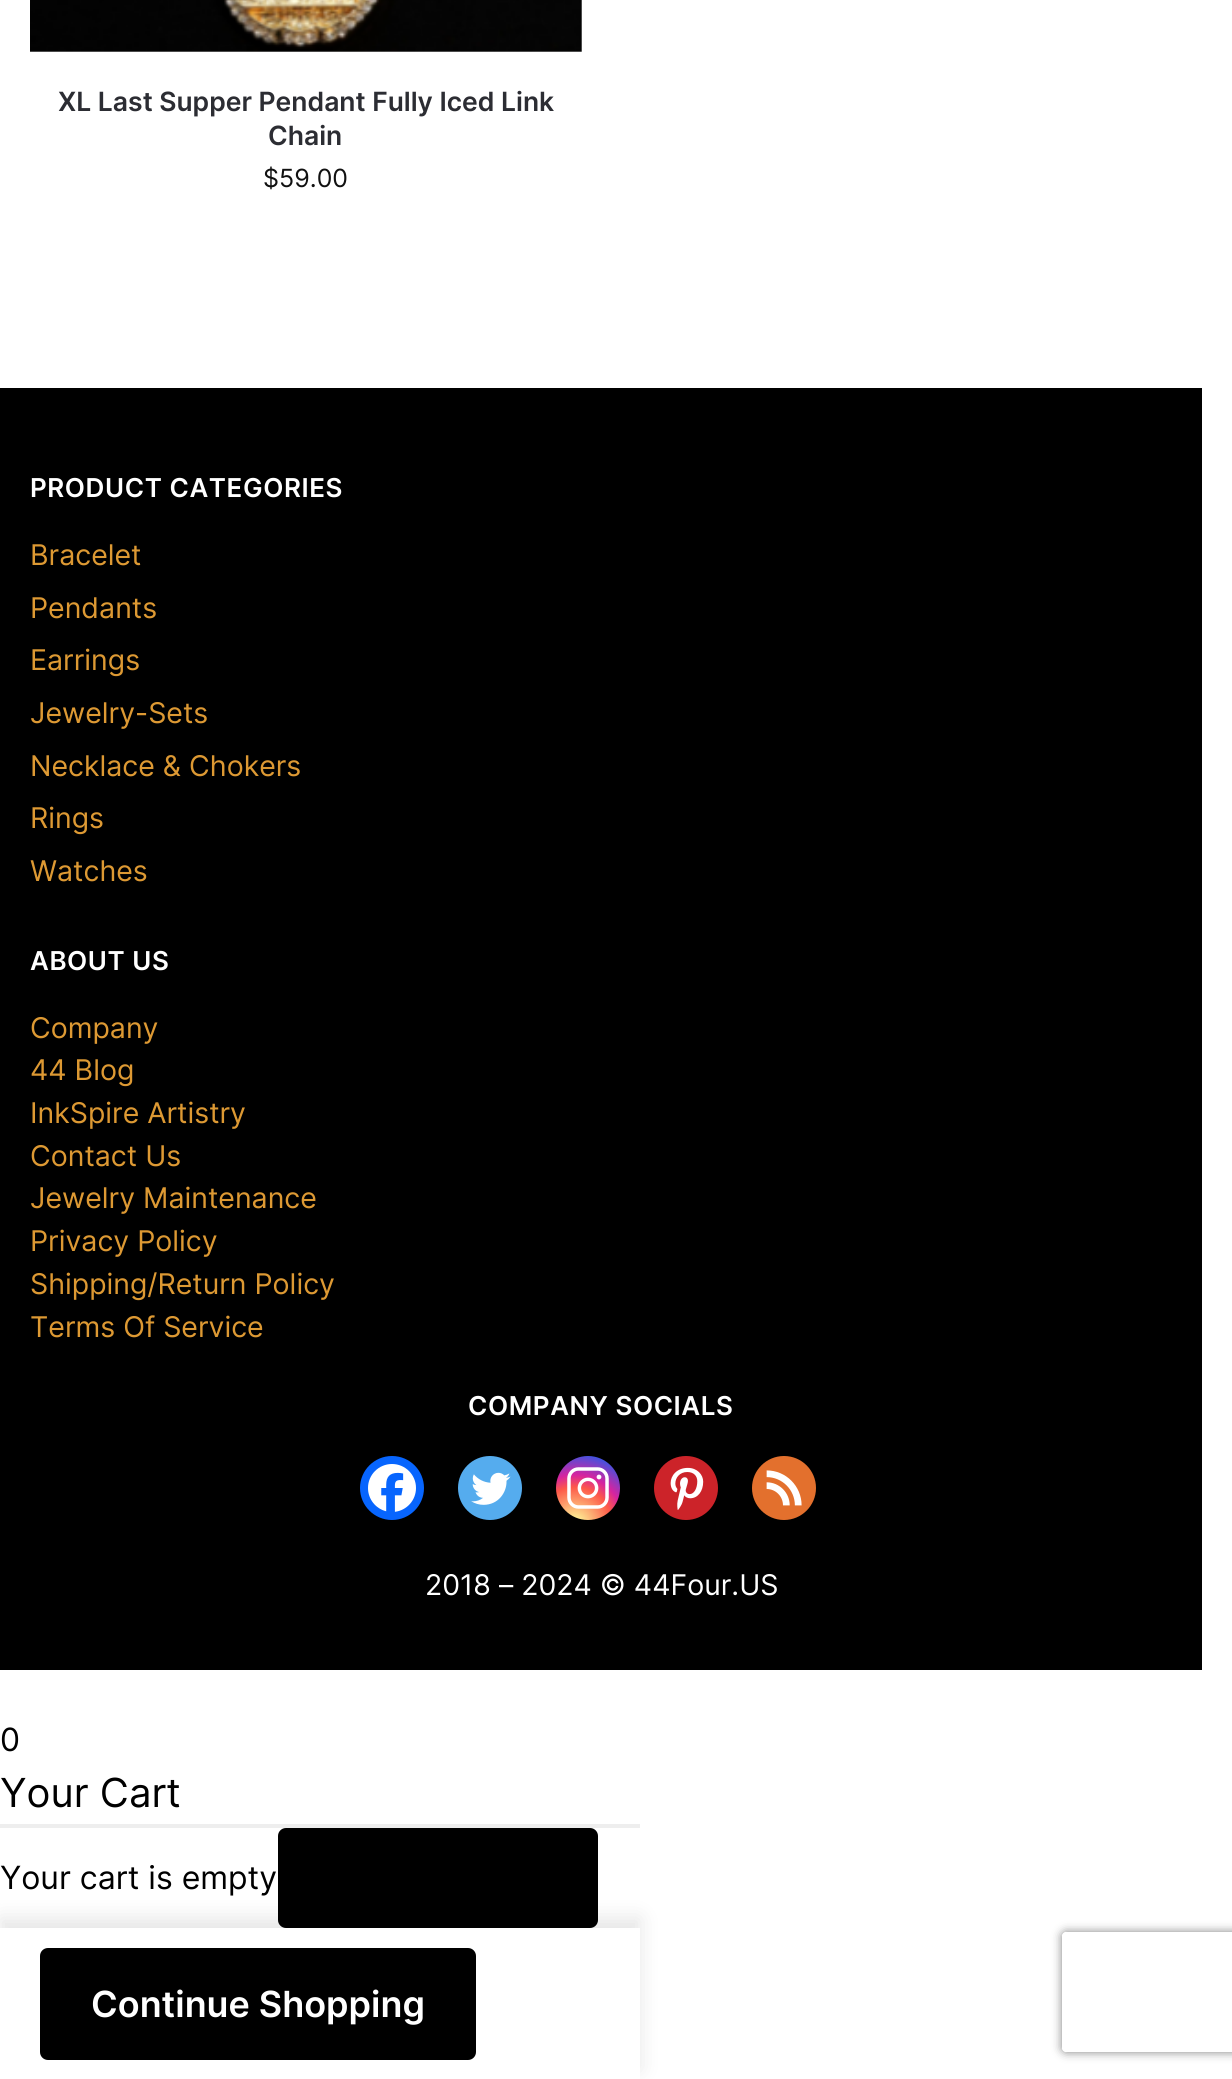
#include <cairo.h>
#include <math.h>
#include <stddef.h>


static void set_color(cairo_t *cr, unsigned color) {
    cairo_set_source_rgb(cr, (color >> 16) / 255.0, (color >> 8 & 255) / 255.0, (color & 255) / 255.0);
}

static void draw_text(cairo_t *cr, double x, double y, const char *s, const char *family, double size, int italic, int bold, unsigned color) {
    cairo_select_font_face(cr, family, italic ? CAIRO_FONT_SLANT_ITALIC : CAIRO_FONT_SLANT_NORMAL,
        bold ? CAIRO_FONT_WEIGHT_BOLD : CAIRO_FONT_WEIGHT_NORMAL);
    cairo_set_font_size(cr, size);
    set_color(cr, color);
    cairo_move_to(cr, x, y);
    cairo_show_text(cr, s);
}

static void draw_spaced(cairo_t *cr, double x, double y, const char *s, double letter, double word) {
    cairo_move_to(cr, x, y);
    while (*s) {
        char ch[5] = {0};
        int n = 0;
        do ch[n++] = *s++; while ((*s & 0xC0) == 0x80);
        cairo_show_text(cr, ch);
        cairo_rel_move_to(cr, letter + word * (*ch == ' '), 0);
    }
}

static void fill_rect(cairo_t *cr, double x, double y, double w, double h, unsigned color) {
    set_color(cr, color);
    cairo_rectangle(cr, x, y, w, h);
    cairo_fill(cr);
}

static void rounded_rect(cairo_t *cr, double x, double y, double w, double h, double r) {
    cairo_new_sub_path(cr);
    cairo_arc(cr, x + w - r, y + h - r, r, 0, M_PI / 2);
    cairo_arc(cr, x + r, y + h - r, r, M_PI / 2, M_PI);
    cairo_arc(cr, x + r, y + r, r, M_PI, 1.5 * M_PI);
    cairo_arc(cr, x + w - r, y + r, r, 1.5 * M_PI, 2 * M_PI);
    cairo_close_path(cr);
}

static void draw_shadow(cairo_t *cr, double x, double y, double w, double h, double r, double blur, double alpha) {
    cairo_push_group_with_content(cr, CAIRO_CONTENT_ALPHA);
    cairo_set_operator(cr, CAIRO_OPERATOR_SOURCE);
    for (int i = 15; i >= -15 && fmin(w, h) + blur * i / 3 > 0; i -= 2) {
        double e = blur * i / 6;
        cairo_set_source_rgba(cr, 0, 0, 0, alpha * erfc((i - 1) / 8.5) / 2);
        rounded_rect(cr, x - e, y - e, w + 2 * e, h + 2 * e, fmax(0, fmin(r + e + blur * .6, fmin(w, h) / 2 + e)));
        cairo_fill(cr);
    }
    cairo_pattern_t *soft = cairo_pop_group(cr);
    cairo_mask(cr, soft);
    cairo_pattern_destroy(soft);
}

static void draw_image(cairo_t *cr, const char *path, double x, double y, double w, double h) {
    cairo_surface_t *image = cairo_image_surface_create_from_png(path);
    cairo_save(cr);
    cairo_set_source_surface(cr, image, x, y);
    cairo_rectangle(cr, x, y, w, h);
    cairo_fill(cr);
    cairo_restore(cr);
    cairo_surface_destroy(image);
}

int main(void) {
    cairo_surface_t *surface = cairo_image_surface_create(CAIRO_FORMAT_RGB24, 1232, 2079);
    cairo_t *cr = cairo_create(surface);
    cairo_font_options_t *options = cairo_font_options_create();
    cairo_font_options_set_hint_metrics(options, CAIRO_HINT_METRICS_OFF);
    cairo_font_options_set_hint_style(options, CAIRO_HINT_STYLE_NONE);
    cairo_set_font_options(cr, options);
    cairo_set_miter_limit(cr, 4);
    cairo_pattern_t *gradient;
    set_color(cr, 0xFFFFFF);
    cairo_paint(cr);
    draw_image(cr, "assets/img1.png", 30, 0, 552, 52);
    draw_text(cr, 58, 111, "XL Last Supper Pendant Fully Iced Link", "Inter SemiBold", 26.5, 0, 0, 0x2C2D33);
    draw_text(cr, 268, 145, "Chain", "Inter SemiBold", 26.5, 0, 0, 0x2C2D33);
    draw_text(cr, 263, 187, "$", "Inter", 25, 0, 0, 0x111111);
    draw_text(cr, 279, 187, "59.00", "Inter", 25, 0, 0, 0x111111);
    fill_rect(cr, 0, 388, 1202, 1282, 0x000000);
    cairo_select_font_face(cr, "Inter SemiBold", CAIRO_FONT_SLANT_NORMAL, CAIRO_FONT_WEIGHT_NORMAL);
    cairo_set_font_size(cr, 26);
    set_color(cr, 0xFFFFFF);
    draw_spaced(cr, 30, 497, "PRODUCT CATEGORIES", 0.6, 0);
    draw_text(cr, 30, 565, "Bracelet", "Inter", 28.5, 0, 0, 0xDD9933);
    draw_text(cr, 30, 618, "Pendants", "Inter", 28.5, 0, 0, 0xDD9933);
    draw_text(cr, 30, 670, "Earrings", "Inter", 28.5, 0, 0, 0xDD9933);
    draw_text(cr, 30, 723, "Jewelry-Sets", "Inter", 28.5, 0, 0, 0xDD9933);
    draw_text(cr, 30, 776, "Necklace & Chokers", "Inter", 28.5, 0, 0, 0xDD9933);
    draw_text(cr, 30, 828, "Rings", "Inter", 28.5, 0, 0, 0xDD9933);
    draw_text(cr, 30, 881, "Watches", "Inter", 28.5, 0, 0, 0xDD9933);
    cairo_select_font_face(cr, "Inter SemiBold", CAIRO_FONT_SLANT_NORMAL, CAIRO_FONT_WEIGHT_NORMAL);
    cairo_set_font_size(cr, 26);
    set_color(cr, 0xFFFFFF);
    draw_spaced(cr, 30, 970, "ABOUT US", 0.6, 0);
    draw_text(cr, 30, 1038, "Company", "Inter", 28.5, 0, 0, 0xDD9933);
    draw_text(cr, 30, 1080, "44 Blog", "Inter", 28.5, 0, 0, 0xDD9933);
    draw_text(cr, 30, 1123, "InkSpire Artistry", "Inter", 28.5, 0, 0, 0xDD9933);
    draw_text(cr, 30, 1166, "Contact Us", "Inter", 28.5, 0, 0, 0xDD9933);
    draw_text(cr, 30, 1208, "Jewelry Maintenance", "Inter", 28.5, 0, 0, 0xDD9933);
    draw_text(cr, 30, 1251, "Privacy Policy", "Inter", 28.5, 0, 0, 0xDD9933);
    draw_text(cr, 30, 1294, "Shipping/Return Policy", "Inter", 28.5, 0, 0, 0xDD9933);
    draw_text(cr, 30, 1337, "Terms Of Service", "Inter", 28.5, 0, 0, 0xDD9933);
    cairo_select_font_face(cr, "Inter SemiBold", CAIRO_FONT_SLANT_NORMAL, CAIRO_FONT_WEIGHT_NORMAL);
    cairo_set_font_size(cr, 26);
    set_color(cr, 0xFFFFFF);
    draw_spaced(cr, 468, 1415, "COMPANY SOCIALS", 0.6, 0);
    set_color(cr, 0x0765FE);
    cairo_new_path(cr);
    cairo_arc(cr, 392, 1488, 32, 0, 2 * M_PI);
    cairo_fill(cr);
    draw_image(cr, "assets/img2.png", 368, 1464, 48, 48);
    set_color(cr, 0x55ACEE);
    cairo_arc(cr, 490, 1488, 32, 0, 2 * M_PI);
    cairo_fill(cr);
    draw_image(cr, "assets/img3.png", 471, 1472, 40, 33);
    gradient = cairo_pattern_create_radial(575, 1524, 0, 575, 1524, 82);
    cairo_pattern_add_color_stop_rgba(gradient, 0, 0.992, 0.957, 0.592, 1);
    cairo_pattern_add_color_stop_rgba(gradient, 0.05, 0.992, 0.957, 0.592, 1);
    cairo_pattern_add_color_stop_rgba(gradient, 0.45, 0.992, 0.349, 0.286, 1);
    cairo_pattern_add_color_stop_rgba(gradient, 0.6, 0.839, 0.141, 0.624, 1);
    cairo_pattern_add_color_stop_rgba(gradient, 0.9, 0.157, 0.353, 0.922, 1);
    cairo_set_source(cr, gradient);
    cairo_pattern_destroy(gradient);
    cairo_arc(cr, 588, 1488, 32, 0, 2 * M_PI);
    cairo_fill(cr);
    draw_image(cr, "assets/img4.png", 567, 1467, 42, 42);
    set_color(cr, 0xCC2329);
    cairo_arc(cr, 686, 1488, 32, 0, 2 * M_PI);
    cairo_fill(cr);
    draw_image(cr, "assets/img5.png", 670, 1467, 34, 43);
    set_color(cr, 0xE3702D);
    cairo_arc(cr, 784, 1488, 32, 0, 2 * M_PI);
    cairo_fill(cr);
    draw_image(cr, "assets/img6.png", 766, 1470, 36, 36);
    draw_text(cr, 425, 1595, "2018 – 2024 © 44Four.US", "Inter", 28.5, 0, 0, 0xFFFFFF);
    fill_rect(cr, 0, 1824, 640, 4, 0xEEEEEE);
    draw_text(cr, 0, 1751, "0", "Inter", 32, 0, 0, 0x000000);
    draw_text(cr, 0, 1807, "Your Cart", "Inter", 40, 0, 0, 0x000000);
    cairo_save(cr);
    cairo_set_fill_rule(cr, CAIRO_FILL_RULE_EVEN_ODD);
    cairo_new_path(cr);
    cairo_move_to(cr, 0, 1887);
    cairo_line_to(cr, 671, 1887);
    cairo_line_to(cr, 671, 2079);
    cairo_line_to(cr, 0, 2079);
    cairo_close_path(cr);
    cairo_move_to(cr, 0, 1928);
    cairo_line_to(cr, 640, 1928);
    cairo_line_to(cr, 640, 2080);
    cairo_line_to(cr, 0, 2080);
    cairo_close_path(cr);
    cairo_clip(cr);
    set_color(cr, 0x000000);
    draw_shadow(cr, 0, 1918, 640, 152, 0, 10, 0.1);
    cairo_restore(cr);
    draw_text(cr, 0, 1889, "Your cart is empty", "Inter", 32, 0, 0, 0x000000);
    rounded_rect(cr, 278, 1828, 320, 100, 8);
    cairo_fill(cr);
    rounded_rect(cr, 40, 1948, 436, 112, 8);
    cairo_fill(cr);
    draw_text(cr, 91, 2017, "Continue Shopping", "Inter SemiBold", 36, 0, 0, 0xFFFFFF);
    cairo_save(cr);
    cairo_set_fill_rule(cr, CAIRO_FILL_RULE_EVEN_ODD);
    cairo_new_path(cr);
    cairo_move_to(cr, 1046, 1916);
    cairo_line_to(cr, 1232, 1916);
    cairo_line_to(cr, 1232, 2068);
    cairo_line_to(cr, 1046, 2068);
    cairo_close_path(cr);
    cairo_move_to(cr, 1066, 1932);
    cairo_line_to(cr, 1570, 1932);
    cairo_curve_to(cr, 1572, 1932, 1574, 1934, 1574, 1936);
    cairo_line_to(cr, 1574, 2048);
    cairo_curve_to(cr, 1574, 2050, 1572, 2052, 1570, 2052);
    cairo_line_to(cr, 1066, 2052);
    cairo_curve_to(cr, 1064, 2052, 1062, 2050, 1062, 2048);
    cairo_line_to(cr, 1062, 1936);
    cairo_curve_to(cr, 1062, 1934, 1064, 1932, 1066, 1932);
    cairo_close_path(cr);
    cairo_clip(cr);
    set_color(cr, 0x808080);
    draw_shadow(cr, 1062, 1932, 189, 120, 4, 5, 1);
    cairo_restore(cr);
    cairo_surface_write_to_png(surface, "output.png");
    cairo_font_options_destroy(options);
    cairo_destroy(cr);
    cairo_surface_destroy(surface);
    return 0;
}
